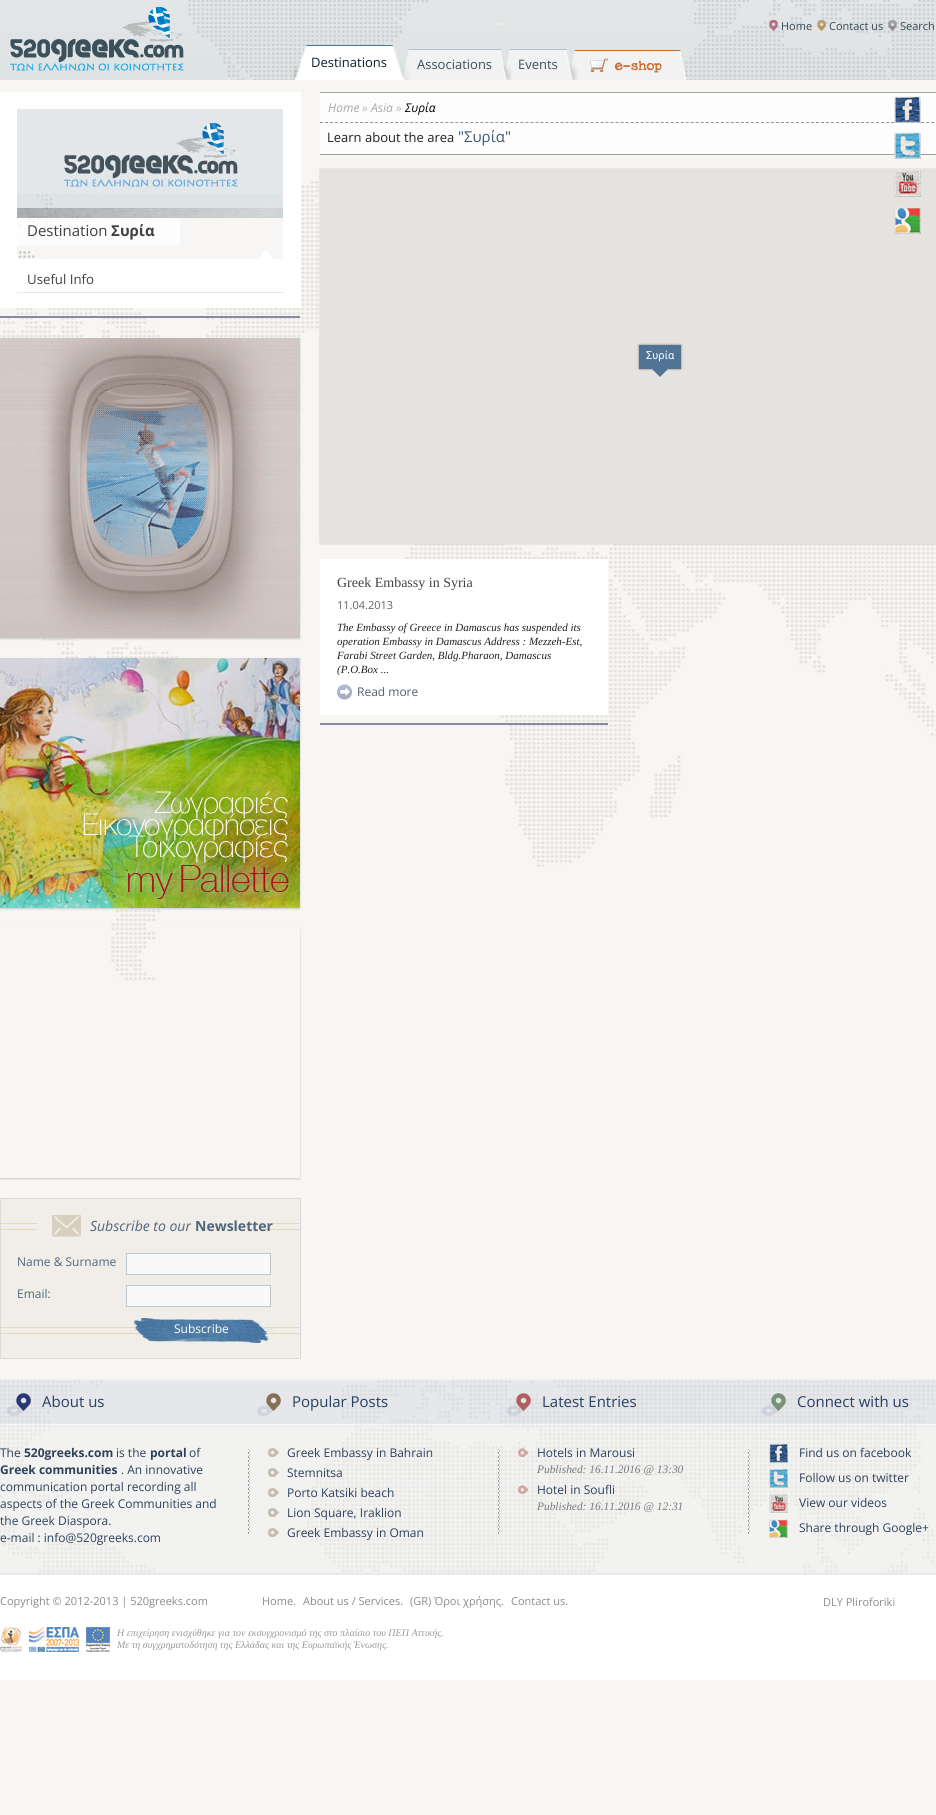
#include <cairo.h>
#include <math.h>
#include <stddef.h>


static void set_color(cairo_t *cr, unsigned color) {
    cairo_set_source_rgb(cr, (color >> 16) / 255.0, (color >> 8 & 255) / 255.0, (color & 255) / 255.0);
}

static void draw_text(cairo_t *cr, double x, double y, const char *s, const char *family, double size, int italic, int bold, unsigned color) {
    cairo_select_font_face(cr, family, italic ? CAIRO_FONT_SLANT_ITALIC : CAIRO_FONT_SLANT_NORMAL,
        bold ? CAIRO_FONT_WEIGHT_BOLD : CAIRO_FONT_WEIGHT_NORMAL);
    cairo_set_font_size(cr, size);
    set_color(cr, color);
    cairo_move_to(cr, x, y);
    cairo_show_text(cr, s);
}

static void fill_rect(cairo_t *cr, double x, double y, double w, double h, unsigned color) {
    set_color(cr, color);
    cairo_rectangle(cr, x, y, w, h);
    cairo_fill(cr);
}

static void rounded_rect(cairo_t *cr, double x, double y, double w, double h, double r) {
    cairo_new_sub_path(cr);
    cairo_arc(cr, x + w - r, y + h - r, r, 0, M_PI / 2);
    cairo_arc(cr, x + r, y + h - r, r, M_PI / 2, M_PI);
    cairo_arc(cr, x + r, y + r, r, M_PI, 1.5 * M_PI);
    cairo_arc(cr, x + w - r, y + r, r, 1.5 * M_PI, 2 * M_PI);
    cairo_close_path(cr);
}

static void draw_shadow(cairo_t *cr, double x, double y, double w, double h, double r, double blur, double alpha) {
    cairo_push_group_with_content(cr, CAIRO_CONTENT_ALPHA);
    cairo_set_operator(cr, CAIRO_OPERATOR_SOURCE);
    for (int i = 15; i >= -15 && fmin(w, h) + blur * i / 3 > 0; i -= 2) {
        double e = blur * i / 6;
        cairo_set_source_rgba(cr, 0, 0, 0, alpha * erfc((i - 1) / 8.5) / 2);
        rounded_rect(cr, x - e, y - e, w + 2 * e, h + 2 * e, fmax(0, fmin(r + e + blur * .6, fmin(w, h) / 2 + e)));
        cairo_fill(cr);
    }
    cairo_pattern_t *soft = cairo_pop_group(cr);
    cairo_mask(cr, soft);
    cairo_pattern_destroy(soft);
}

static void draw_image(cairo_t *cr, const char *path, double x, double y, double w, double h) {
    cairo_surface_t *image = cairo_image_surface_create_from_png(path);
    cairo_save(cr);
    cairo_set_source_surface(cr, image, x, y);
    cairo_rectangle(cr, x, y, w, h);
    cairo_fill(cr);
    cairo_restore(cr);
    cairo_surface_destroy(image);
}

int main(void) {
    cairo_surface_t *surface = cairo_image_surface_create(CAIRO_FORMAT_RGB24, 936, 1815);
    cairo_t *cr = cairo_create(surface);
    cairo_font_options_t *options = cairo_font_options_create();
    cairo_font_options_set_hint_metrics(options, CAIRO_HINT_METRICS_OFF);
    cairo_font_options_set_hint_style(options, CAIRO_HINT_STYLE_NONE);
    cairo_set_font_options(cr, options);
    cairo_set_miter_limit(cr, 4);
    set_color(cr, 0xF7F6F3);
    cairo_paint(cr);
    draw_image(cr, "assets/img1.png", 0, 181, 936, 799);
    draw_image(cr, "assets/img2.png", 0, 0, 936, 80);
    draw_image(cr, "assets/img3.png", 10, 7, 174, 64);
    draw_image(cr, "assets/img4.png", 769, 20, 9, 11);
    draw_text(cr, 781, 30, "Home", "Open Sans", 11, 0, 0, 0x324752);
    draw_image(cr, "assets/img5.png", 817, 20, 9, 11);
    draw_text(cr, 829, 30, "Contact us", "Open Sans", 11, 0, 0, 0x324752);
    draw_image(cr, "assets/img6.png", 888, 20, 9, 11);
    draw_text(cr, 900, 30, "Search", "Open Sans", 11, 0, 0, 0x324752);
    draw_image(cr, "assets/img7.png", 292, 45, 20, 35);
    draw_image(cr, "assets/img9.png", 402, 49, 17, 31);
    draw_image(cr, "assets/img8.png", 312, 45, 99, 35);
    draw_text(cr, 311, 67, "Destinations", "Open Sans", 13, 0, 0, 0x0D1F28);
    draw_image(cr, "assets/img11.png", 504, 49, 16, 31);
    draw_image(cr, "assets/img10.png", 419, 49, 93, 31);
    draw_text(cr, 417, 69, "Associations", "Open Sans", 13, 0, 0, 0x3B505B);
    draw_image(cr, "assets/img13.png", 570, 50, 117, 30);
    draw_image(cr, "assets/img12.png", 520, 49, 58, 31);
    draw_text(cr, 518, 69, "Events", "Open Sans", 13, 0, 0, 0x3B505B);
    fill_rect(cr, 0, 92, 301, 216, 0xFFFFFF);
    draw_image(cr, "assets/img14.png", 17, 109, 266, 150);
    cairo_set_source_rgba(cr, 1, 1, 1, 0.81);
    cairo_rectangle(cr, 17, 218, 163, 27);
    cairo_fill(cr);
    draw_text(cr, 27, 236, "Destination", "Open Sans", 15, 0, 0, 0x414141);
    draw_text(cr, 111, 236, "Συρία", "Open Sans", 15, 0, 1, 0x414141);
    draw_image(cr, "assets/img15.png", 259, 249, 14, 10);
    fill_rect(cr, 17, 292, 267, 1, 0xE6E8EC);
    draw_text(cr, 27, 284, "Useful Info", "Open Sans", 13.25, 0, 0, 0x414141);
    fill_rect(cr, 0, 316, 300, 2, 0x848DA0);
    set_color(cr, 0xCCCCCC);
    draw_shadow(cr, 0, 339, 300, 300, 0, 1, 1);
    draw_image(cr, "assets/img16.png", 0, 338, 300, 300);
    draw_shadow(cr, 0, 659, 300, 250, 0, 1, 1);
    draw_image(cr, "assets/img17.png", 0, 658, 300, 250);
    cairo_save(cr);
    cairo_set_fill_rule(cr, CAIRO_FILL_RULE_EVEN_ODD);
    cairo_new_path(cr);
    cairo_move_to(cr, 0, 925);
    cairo_line_to(cr, 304, 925);
    cairo_line_to(cr, 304, 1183);
    cairo_line_to(cr, 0, 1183);
    cairo_close_path(cr);
    cairo_move_to(cr, 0, 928);
    cairo_line_to(cr, 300, 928);
    cairo_line_to(cr, 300, 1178);
    cairo_line_to(cr, 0, 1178);
    cairo_close_path(cr);
    cairo_clip(cr);
    draw_shadow(cr, 0, 929, 300, 250, 0, 1, 1);
    cairo_restore(cr);
    fill_rect(cr, 1, 1199, 299, 159, 0xF1EEE8);
    draw_image(cr, "assets/img18.png", 1, 1209, 299, 127);
    cairo_rectangle(cr, 0.5, 1198.5, 300, 160);
    set_color(cr, 0xDBDAD9);
    cairo_set_line_width(cr, 1);
    cairo_stroke(cr);
    draw_text(cr, 90, 1231, "Subscribe to our", "Open Sans", 14, 1, 0, 0x50667B);
    draw_text(cr, 195, 1231, "Newsletter", "Open Sans", 14, 0, 1, 0x50667B);
    draw_text(cr, 17, 1266, "Name & Surname", "Open Sans", 12, 0, 0, 0x50667B);
    set_color(cr, 0xF9F9F9);
    cairo_rectangle(cr, 126.5, 1253.5, 144, 21);
    cairo_fill_preserve(cr);
    set_color(cr, 0xBEC6CB);
    cairo_stroke(cr);
    draw_text(cr, 17, 1298, "Email:", "Open Sans", 12, 0, 0, 0x50667B);
    set_color(cr, 0xF9F9F9);
    cairo_rectangle(cr, 126.5, 1285.5, 144, 21);
    cairo_fill_preserve(cr);
    set_color(cr, 0xBEC6CB);
    cairo_stroke(cr);
    draw_image(cr, "assets/img19.png", 128, 1318, 146, 25);
    draw_text(cr, 174, 1333, "Subscribe", "Open Sans", 12, 0, 0, 0xFFFFFF);
    fill_rect(cr, 320, 93, 616, 61, 0xFDFDFD);
    cairo_new_path(cr);
    cairo_move_to(cr, 320, 122.5);
    cairo_line_to(cr, 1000, 122.5);
    set_color(cr, 0x959595);
    cairo_set_dash(cr, (double[]){3, 2.01}, 2, 0);
    cairo_stroke(cr);
    draw_text(cr, 328, 112, "Home", "Open Sans", 12, 1, 0, 0xA8A9A9);
    draw_text(cr, 362, 112, "»", "Open Sans", 12, 1, 0, 0xB2B3B3);
    draw_text(cr, 371, 112, "Asia", "Open Sans", 12, 1, 0, 0xA8A9A9);
    draw_text(cr, 396, 112, "»", "Open Sans", 12, 1, 0, 0xB2B3B3);
    draw_text(cr, 405, 112, "Συρία", "Open Sans", 12, 1, 0, 0x000000);
    fill_rect(cr, 320, 92, 616, 1, 0x9F9F9F);
    fill_rect(cr, 320, 154, 616, 1, 0x9F9F9F);
    draw_text(cr, 327, 142, "Learn about the area", "Open Sans", 13, 0, 0, 0x212121);
    draw_text(cr, 458, 142, "\"Συρία\"", "Open Sans", 15, 0, 0, 0x3B5874);
    set_color(cr, 0xCCCCCC);
    draw_shadow(cr, 320, 169, 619, 375, 0, 1, 1);
    fill_rect(cr, 320, 169, 616, 375, 0xE5E3DF);
    set_color(cr, 0x777777);
    draw_shadow(cr, 639, 345, 42, 24, 0, 1, 1);
    fill_rect(cr, 639, 345, 42, 24, 0x527494);
    draw_text(cr, 646, 359, "Συρία", "Roboto", 11, 0, 0, 0xFFFFFF);
    set_color(cr, 0x527494);
    cairo_new_path(cr);
    cairo_move_to(cr, 652, 369);
    cairo_line_to(cr, 668, 369);
    cairo_line_to(cr, 660, 377);
    cairo_close_path(cr);
    cairo_fill(cr);
    fill_rect(cr, 320, 559, 288, 156, 0xFFFFFF);
    draw_text(cr, 337, 587, "Greek Embassy in Syria", "Liberation Serif", 14, 0, 0, 0x414141);
    draw_text(cr, 337, 609, "11.04.2013", "Open Sans", 11, 0, 0, 0x636363);
    draw_text(cr, 337, 631, "The Embassy of Greece in Damascus has suspended its", "Liberation Serif", 11, 1, 0, 0x212121);
    draw_text(cr, 337, 645, "operation Embassy in Damascus Address : Mezzeh-Est,", "Liberation Serif", 11, 1, 0, 0x212121);
    draw_text(cr, 337, 659, "Farabi Street Garden, Bldg.Pharaon, Damascus", "Liberation Serif", 11, 1, 0, 0x212121);
    draw_text(cr, 337, 673, "(P.O.Box ...", "Liberation Serif", 11, 1, 0, 0x212121);
    draw_image(cr, "assets/img20.png", 337, 684, 15, 16);
    draw_text(cr, 357, 696, "Read more", "Open Sans", 12, 0, 0, 0x545D71);
    fill_rect(cr, 320, 723, 288, 2, 0x848DA0);
    draw_image(cr, "assets/img21.png", 0, 1379, 936, 194);
    draw_image(cr, "assets/img22.png", 0, 1379, 936, 194);
    fill_rect(cr, 0, 1573, 936, 1, 0xE5E5E5);
    draw_image(cr, "assets/img23.png", 248, 1448, 2, 87);
    draw_image(cr, "assets/img24.png", 7, 1393, 24, 23);
    draw_text(cr, 42, 1407, "About us", "Open Sans", 15, 0, 0, 0x264062);
    draw_text(cr, 0, 1457, "The", "Open Sans", 12, 0, 0, 0x2E415A);
    draw_text(cr, 24, 1457, "520greeks.com", "Open Sans", 12, 0, 1, 0x2E415A);
    draw_text(cr, 116, 1457, "is the", "Open Sans", 12, 0, 0, 0x2E415A);
    draw_text(cr, 150, 1457, "portal", "Open Sans", 12, 0, 1, 0x2E415A);
    draw_text(cr, 189, 1457, "of", "Open Sans", 12, 0, 0, 0x2E415A);
    draw_text(cr, 0, 1474, "Greek communities", "Open Sans", 12, 0, 1, 0x2E415A);
    draw_text(cr, 121, 1474, ". An innovative", "Open Sans", 12, 0, 0, 0x2E415A);
    draw_text(cr, 0, 1491, "communication portal recording all", "Open Sans", 12, 0, 0, 0x2E415A);
    draw_text(cr, 0, 1508, "aspects of the Greek Communities and", "Open Sans", 12, 0, 0, 0x2E415A);
    draw_text(cr, 0, 1525, "the Greek Diaspora.", "Open Sans", 12, 0, 0, 0x2E415A);
    draw_text(cr, 0, 1542, "e-mail : info@520greeks.com", "Open Sans", 12, 0, 0, 0x2E415A);
    draw_image(cr, "assets/img25.png", 498, 1448, 2, 88);
    draw_image(cr, "assets/img26.png", 257, 1393, 24, 23);
    draw_text(cr, 292, 1407, "Popular Posts", "Open Sans", 15, 0, 0, 0x264062);
    draw_image(cr, "assets/img27.png", 268, 1448, 11, 9);
    draw_text(cr, 287, 1457, "Greek Embassy in Bahrain", "Open Sans", 12, 0, 0, 0x2E415A);
    draw_image(cr, "assets/img27.png", 268, 1468, 11, 9);
    draw_text(cr, 287, 1477, "Stemnitsa", "Open Sans", 12, 0, 0, 0x2E415A);
    draw_image(cr, "assets/img27.png", 268, 1488, 11, 9);
    draw_text(cr, 287, 1497, "Porto Katsiki beach", "Open Sans", 12, 0, 0, 0x2E415A);
    draw_image(cr, "assets/img27.png", 268, 1508, 11, 9);
    draw_text(cr, 287, 1517, "Lion Square, Iraklion", "Open Sans", 12, 0, 0, 0x2E415A);
    draw_image(cr, "assets/img27.png", 268, 1528, 11, 9);
    draw_text(cr, 287, 1537, "Greek Embassy in Oman", "Open Sans", 12, 0, 0, 0x2E415A);
    draw_image(cr, "assets/img28.png", 748, 1446, 2, 89);
    draw_image(cr, "assets/img29.png", 507, 1393, 24, 23);
    draw_text(cr, 542, 1407, "Latest Entries", "Open Sans", 15, 0, 0, 0x264062);
    draw_image(cr, "assets/img30.png", 518, 1448, 10, 9);
    draw_text(cr, 537, 1457, "Hotels in Marousi", "Open Sans", 12, 0, 0, 0x2E415A);
    draw_text(cr, 537, 1473, "Published: 16.11.2016 @ 13:30", "Liberation Serif", 11.4, 1, 0, 0x7A7A7A);
    draw_image(cr, "assets/img31.png", 518, 1485, 10, 9);
    draw_text(cr, 537, 1494, "Hotel in Soufli", "Open Sans", 12, 0, 0, 0x2E415A);
    draw_text(cr, 537, 1510, "Published: 16.11.2016 @ 12:31", "Liberation Serif", 11.4, 1, 0, 0x7A7A7A);
    draw_image(cr, "assets/img32.png", 762, 1393, 24, 23);
    draw_text(cr, 797, 1407, "Connect with us", "Open Sans", 15, 0, 0, 0x264062);
    draw_image(cr, "assets/img33.png", 769, 1444, 19, 19);
    draw_text(cr, 799, 1457, "Find us on facebook", "Open Sans", 12, 0, 0, 0x2E415A);
    draw_image(cr, "assets/img34.png", 769, 1469, 19, 19);
    draw_text(cr, 799, 1482, "Follow us on twitter", "Open Sans", 12, 0, 0, 0x2E415A);
    draw_image(cr, "assets/img35.png", 769, 1494, 19, 19);
    draw_text(cr, 799, 1507, "View our videos", "Open Sans", 12, 0, 0, 0x2E415A);
    draw_image(cr, "assets/img36.png", 769, 1519, 19, 19);
    draw_text(cr, 799, 1532, "Share through Google+", "Open Sans", 12, 0, 0, 0x2E415A);
    fill_rect(cr, 0, 1575, 936, 105, 0xFFFFFF);
    fill_rect(cr, 0, 1574, 936, 1, 0xEDECEA);
    draw_text(cr, 0, 1605, "Copyright © 2012-2013 | 520greeks.com", "Open Sans", 11, 0, 0, 0x8B8B8B);
    draw_text(cr, 262, 1605, "Home.", "Open Sans", 11, 0, 0, 0x8B8B8B);
    draw_text(cr, 303, 1605, "About us / Services.", "Open Sans", 11, 0, 0, 0x8B8B8B);
    draw_text(cr, 410, 1605, "(GR) Όροι χρήσης.", "Open Sans", 11, 0, 0, 0x8B8B8B);
    draw_text(cr, 511, 1605, "Contact us.", "Open Sans", 11, 0, 0, 0x8B8B8B);
    draw_text(cr, 823, 1606, "DLY Pliroforiki", "Open Sans", 11, 0, 0, 0x8B8B8B);
    draw_image(cr, "assets/img37.png", 0, 1627, 22, 25);
    draw_image(cr, "assets/img38.png", 29, 1627, 50, 25);
    draw_image(cr, "assets/img39.png", 86, 1627, 24, 25);
    draw_text(cr, 117, 1636, "Η επιχείρηση ενισχύθηκε για τον εκσυγχρονισμό της στο πλαίσιο του ΠΕΠ Αττικής.", "Liberation Serif", 10, 1, 0, 0x999999);
    draw_text(cr, 117, 1648, "Με τη συγχρηματοδότηση της Ελλάδας και της Ευρωπαϊκής Ένωσης.", "Liberation Serif", 10, 1, 0, 0x999999);
    draw_image(cr, "assets/img40.png", 894, 96, 27, 27);
    draw_image(cr, "assets/img41.png", 894, 132, 27, 27);
    draw_image(cr, "assets/img42.png", 894, 170, 27, 27);
    draw_image(cr, "assets/img43.png", 894, 207, 27, 27);
    cairo_surface_write_to_png(surface, "output.png");
    cairo_font_options_destroy(options);
    cairo_destroy(cr);
    cairo_surface_destroy(surface);
    return 0;
}
